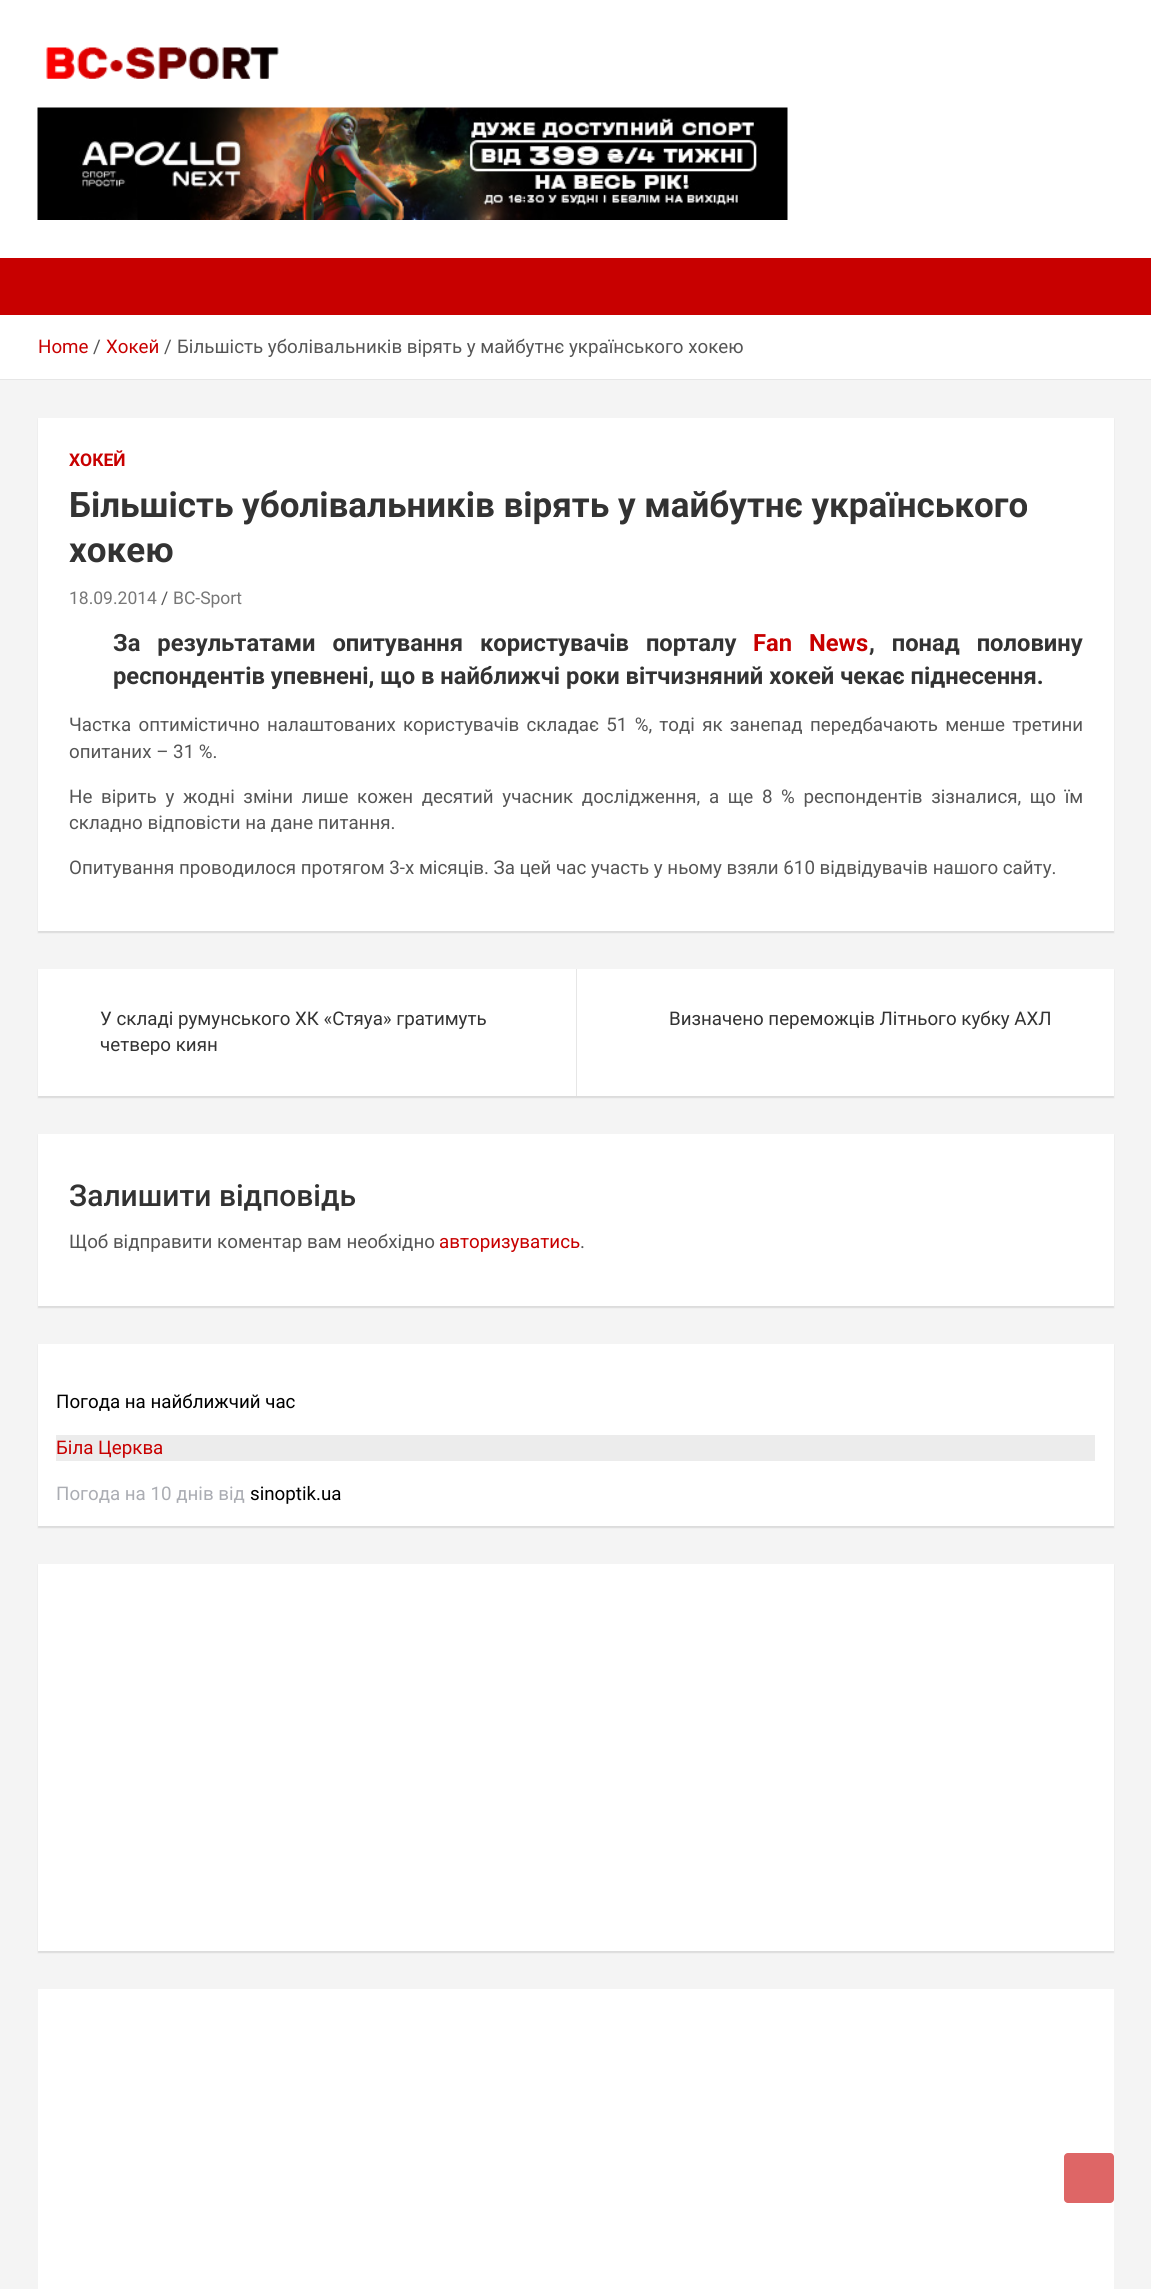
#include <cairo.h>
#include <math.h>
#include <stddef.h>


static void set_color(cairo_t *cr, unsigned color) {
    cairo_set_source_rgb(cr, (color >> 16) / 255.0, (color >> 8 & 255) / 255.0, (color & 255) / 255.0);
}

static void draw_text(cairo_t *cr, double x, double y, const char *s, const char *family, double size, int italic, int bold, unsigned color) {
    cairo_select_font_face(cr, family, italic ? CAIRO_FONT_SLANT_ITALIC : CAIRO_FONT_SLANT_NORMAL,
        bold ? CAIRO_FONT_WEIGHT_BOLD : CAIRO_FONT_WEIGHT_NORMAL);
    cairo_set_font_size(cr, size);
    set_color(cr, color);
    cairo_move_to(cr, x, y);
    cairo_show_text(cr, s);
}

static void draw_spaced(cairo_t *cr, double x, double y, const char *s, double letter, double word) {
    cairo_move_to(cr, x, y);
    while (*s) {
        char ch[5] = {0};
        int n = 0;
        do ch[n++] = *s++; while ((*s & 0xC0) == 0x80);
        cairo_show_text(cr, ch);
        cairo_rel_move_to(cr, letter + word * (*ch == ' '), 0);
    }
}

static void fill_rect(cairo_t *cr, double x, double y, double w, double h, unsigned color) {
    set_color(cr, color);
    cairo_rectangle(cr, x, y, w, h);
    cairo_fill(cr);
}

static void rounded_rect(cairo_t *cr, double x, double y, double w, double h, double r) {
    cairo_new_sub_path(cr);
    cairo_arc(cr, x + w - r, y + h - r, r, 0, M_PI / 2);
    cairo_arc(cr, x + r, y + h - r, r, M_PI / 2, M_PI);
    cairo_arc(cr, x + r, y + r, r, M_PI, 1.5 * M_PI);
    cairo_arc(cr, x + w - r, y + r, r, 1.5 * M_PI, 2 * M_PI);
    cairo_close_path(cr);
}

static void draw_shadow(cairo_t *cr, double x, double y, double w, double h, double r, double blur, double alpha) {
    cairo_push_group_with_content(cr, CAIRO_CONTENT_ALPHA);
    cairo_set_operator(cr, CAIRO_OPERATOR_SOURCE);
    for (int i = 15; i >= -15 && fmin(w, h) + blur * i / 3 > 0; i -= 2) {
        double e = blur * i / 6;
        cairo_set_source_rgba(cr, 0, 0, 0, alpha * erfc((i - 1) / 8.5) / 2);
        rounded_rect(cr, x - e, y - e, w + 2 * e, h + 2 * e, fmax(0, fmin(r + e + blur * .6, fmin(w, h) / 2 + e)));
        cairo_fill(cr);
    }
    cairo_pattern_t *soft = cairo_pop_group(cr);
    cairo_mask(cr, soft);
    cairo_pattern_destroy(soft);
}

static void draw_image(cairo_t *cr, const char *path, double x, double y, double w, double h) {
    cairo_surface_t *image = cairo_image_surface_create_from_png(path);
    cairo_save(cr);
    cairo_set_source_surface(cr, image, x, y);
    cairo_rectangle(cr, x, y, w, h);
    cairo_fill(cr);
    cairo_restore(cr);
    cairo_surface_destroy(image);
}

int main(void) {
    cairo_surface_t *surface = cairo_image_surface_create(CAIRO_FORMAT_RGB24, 1151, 2289);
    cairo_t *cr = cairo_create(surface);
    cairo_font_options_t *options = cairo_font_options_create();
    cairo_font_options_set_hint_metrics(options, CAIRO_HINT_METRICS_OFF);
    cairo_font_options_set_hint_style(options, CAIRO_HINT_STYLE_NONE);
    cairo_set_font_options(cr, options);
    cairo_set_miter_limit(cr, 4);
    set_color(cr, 0xF4F4F4);
    cairo_paint(cr);
    fill_rect(cr, 0, 0, 1151, 258, 0xFFFFFF);
    draw_image(cr, "assets/img1.png", 46, 47, 233, 32);
    draw_image(cr, "assets/img2.png", 37, 107, 751, 113);
    fill_rect(cr, 0, 258, 1151, 57, 0xC80000);
    fill_rect(cr, 0, 315, 1151, 64, 0xFFFFFF);
    fill_rect(cr, 0, 379, 1151, 1, 0xE6E6E6);
    draw_text(cr, 38, 353, "Home", "Roboto", 18.75, 0, 0, 0xC80000);
    draw_text(cr, 93, 353, "/", "Roboto", 18.75, 0, 0, 0x555555);
    draw_text(cr, 106, 353, "Хокей", "Roboto", 18.75, 0, 0, 0xC80000);
    draw_text(cr, 164, 353, "/", "Roboto", 18.75, 0, 0, 0x555555);
    draw_text(cr, 177, 353, "Більшість уболівальників вірять у майбутнє українського хокею", "Roboto", 18.75, 0, 0, 0x555555);
    set_color(cr, 0x000000);
    draw_shadow(cr, 38, 419, 1076, 514, 0, 0.5, 0.1);
    fill_rect(cr, 38, 418, 1076, 513, 0xFFFFFF);
    draw_text(cr, 69, 466, "ХОКЕЙ", "Roboto", 17.5, 0, 1, 0xC80000);
    draw_text(cr, 69, 517, "Більшість уболівальників вірять у майбутнє українського", "Roboto", 35, 0, 1, 0x333333);
    draw_text(cr, 69, 562, "хокею", "Roboto", 35, 0, 1, 0x333333);
    draw_text(cr, 69, 604, "18.09.2014", "Roboto", 17.5, 0, 0, 0x777777);
    draw_text(cr, 161, 604, "/", "Roboto", 17.5, 0, 0, 0x555555);
    draw_text(cr, 173, 604, "BC-Sport", "Roboto", 17.5, 0, 0, 0x777777);
    cairo_select_font_face(cr, "Roboto", CAIRO_FONT_SLANT_NORMAL, CAIRO_FONT_WEIGHT_BOLD);
    cairo_set_font_size(cr, 23.75);
    set_color(cr, 0x333333);
    draw_spaced(cr, 113, 651, "За результатами опитування користувачів порталу", 0, 11);
    set_color(cr, 0xC80000);
    draw_spaced(cr, 753, 651, "Fan News", 0, 11);
    set_color(cr, 0x333333);
    draw_spaced(cr, 869, 651, ", понад половину", 0, 11);
    draw_text(cr, 113, 684, "респондентів упевнені, що в найближчі роки вітчизняний хокей чекає піднесення.", "Roboto", 23.75, 0, 1, 0x333333);
    cairo_select_font_face(cr, "Roboto", CAIRO_FONT_SLANT_NORMAL, CAIRO_FONT_WEIGHT_NORMAL);
    cairo_set_font_size(cr, 18.75);
    set_color(cr, 0x555555);
    draw_spaced(cr, 69, 731, "Частка оптимістично налаштованих користувачів складає 51 %, тоді як занепад передбачають менше третини", 0, 2.6);
    draw_text(cr, 69, 758, "опитаних – 31 %.", "Roboto", 18.75, 0, 0, 0x555555);
    draw_spaced(cr, 69, 803, "Не вірить у жодні зміни лише кожен десятий учасник дослідження, а ще 8 % респондентів зізналися, що їм", 0, 4);
    draw_text(cr, 69, 829, "складно відповісти на дане питання.", "Roboto", 18.75, 0, 0, 0x555555);
    draw_text(cr, 69, 874, "Опитування проводилося протягом 3-х місяців. За цей час участь у ньому взяли 610 відвідувачів нашого сайту.", "Roboto", 18.75, 0, 0, 0x555555);
    set_color(cr, 0x000000);
    draw_shadow(cr, 38, 970, 1076, 128, 0, 0.5, 0.1);
    fill_rect(cr, 38, 969, 1076, 127, 0xFFFFFF);
    draw_text(cr, 100, 1025, "У складі румунського ХК «Стяуа» гратимуть", "Roboto", 18.75, 0, 0, 0x333333);
    draw_text(cr, 100, 1051, "четверо киян", "Roboto", 18.75, 0, 0, 0x333333);
    fill_rect(cr, 576, 969, 1, 127, 0xE6E6E6);
    draw_text(cr, 669, 1025, "Визначено переможців Літнього кубку АХЛ", "Roboto", 18.75, 0, 0, 0x333333);
    set_color(cr, 0x000000);
    draw_shadow(cr, 38, 1135, 1076, 173, 0, 0.5, 0.1);
    fill_rect(cr, 38, 1134, 1076, 172, 0xFFFFFF);
    draw_text(cr, 69, 1206, "Залишити відповідь", "Roboto Medium", 30, 0, 0, 0x333333);
    draw_text(cr, 69, 1248, "Щоб відправити коментар вам необхідно", "Roboto", 18.75, 0, 0, 0x555555);
    draw_text(cr, 439, 1248, "авторизуватись", "Roboto", 18.75, 0, 0, 0xC80000);
    draw_text(cr, 580, 1248, ".", "Roboto", 18.75, 0, 0, 0x555555);
    set_color(cr, 0x000000);
    draw_shadow(cr, 38, 1345, 1076, 183, 0, 0.5, 0.1);
    fill_rect(cr, 38, 1344, 1076, 182, 0xFFFFFF);
    draw_text(cr, 56, 1408, "Погода на найближчий час", "Roboto", 18.75, 0, 0, 0x000000);
    fill_rect(cr, 56, 1435, 1039, 26, 0xECECEC);
    draw_text(cr, 56, 1454, "Біла Церква", "Roboto", 18.75, 0, 0, 0xC80000);
    draw_text(cr, 56, 1500, "Погода на 10 днів від", "Roboto", 18.75, 0, 0, 0xABADB3);
    draw_text(cr, 250, 1500, "sinoptik.ua", "Roboto", 18.75, 0, 0, 0x000000);
    set_color(cr, 0x000000);
    draw_shadow(cr, 38, 1565, 1076, 388, 0, 0.5, 0.1);
    fill_rect(cr, 38, 1564, 1076, 387, 0xFFFFFF);
    fill_rect(cr, 38, 1989, 1076, 300, 0xFFFFFF);
    set_color(cr, 0xDE6666);
    rounded_rect(cr, 1064, 2153, 50, 50, 4);
    cairo_fill(cr);
    cairo_surface_write_to_png(surface, "output.png");
    cairo_font_options_destroy(options);
    cairo_destroy(cr);
    cairo_surface_destroy(surface);
    return 0;
}
